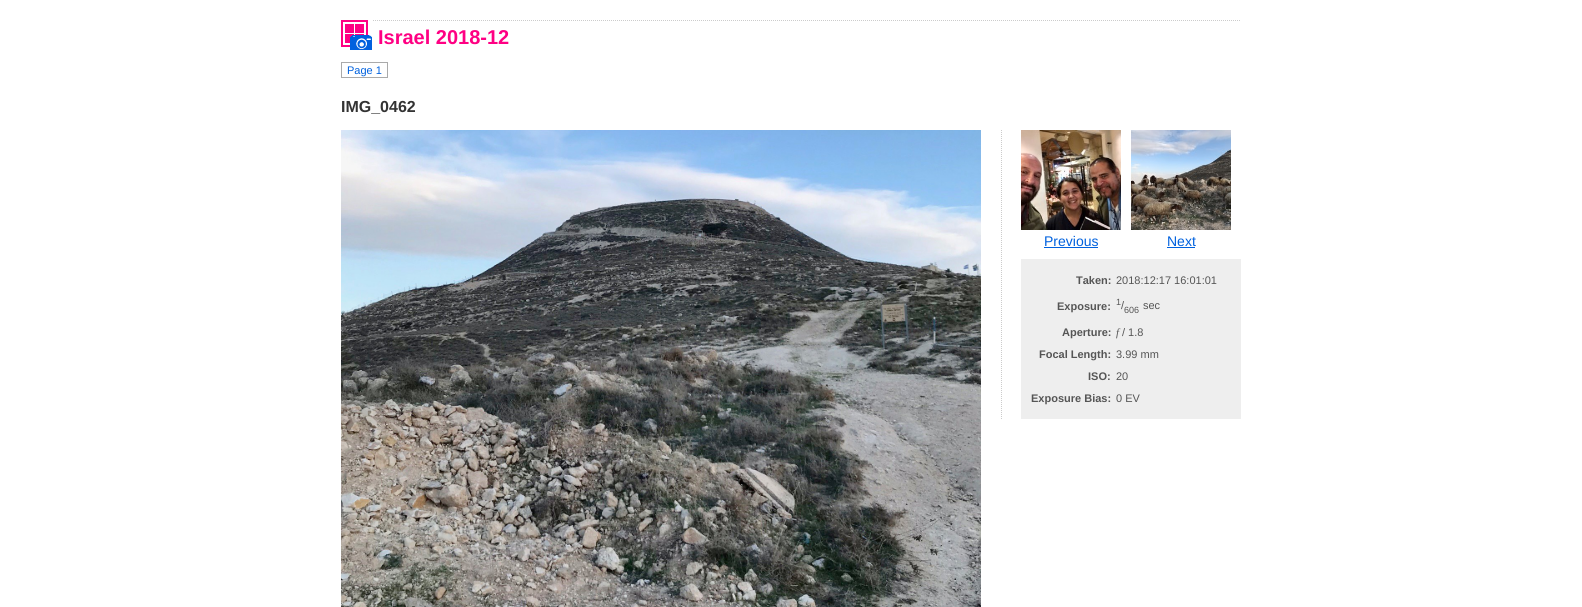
#include <cairo.h>
#include <math.h>
#include <stddef.h>


static void set_color(cairo_t *cr, unsigned color) {
    cairo_set_source_rgb(cr, (color >> 16) / 255.0, (color >> 8 & 255) / 255.0, (color & 255) / 255.0);
}

static void draw_text(cairo_t *cr, double x, double y, const char *s, const char *family, double size, int italic, int bold, unsigned color) {
    cairo_select_font_face(cr, family, italic ? CAIRO_FONT_SLANT_ITALIC : CAIRO_FONT_SLANT_NORMAL,
        bold ? CAIRO_FONT_WEIGHT_BOLD : CAIRO_FONT_WEIGHT_NORMAL);
    cairo_set_font_size(cr, size);
    set_color(cr, color);
    cairo_move_to(cr, x, y);
    cairo_show_text(cr, s);
}

static void fill_rect(cairo_t *cr, double x, double y, double w, double h, unsigned color) {
    set_color(cr, color);
    cairo_rectangle(cr, x, y, w, h);
    cairo_fill(cr);
}

static void draw_image(cairo_t *cr, const char *path, double x, double y, double w, double h) {
    cairo_surface_t *image = cairo_image_surface_create_from_png(path);
    cairo_save(cr);
    cairo_set_source_surface(cr, image, x, y);
    cairo_rectangle(cr, x, y, w, h);
    cairo_fill(cr);
    cairo_restore(cr);
    cairo_surface_destroy(image);
}

int main(void) {
    cairo_surface_t *surface = cairo_image_surface_create(CAIRO_FORMAT_RGB24, 1582, 607);
    cairo_t *cr = cairo_create(surface);
    cairo_font_options_t *options = cairo_font_options_create();
    cairo_font_options_set_hint_metrics(options, CAIRO_HINT_METRICS_OFF);
    cairo_font_options_set_hint_style(options, CAIRO_HINT_STYLE_NONE);
    cairo_set_font_options(cr, options);
    cairo_set_miter_limit(cr, 4);
    set_color(cr, 0xFFFFFF);
    cairo_paint(cr);
    cairo_new_path(cr);
    cairo_move_to(cr, 341, 20.5);
    cairo_line_to(cr, 1241, 20.5);
    set_color(cr, 0xCCCCCC);
    cairo_set_line_width(cr, 1);
    cairo_set_dash(cr, (double[]){1, 1}, 2, 0);
    cairo_stroke(cr);
    draw_image(cr, "assets/img1.png", 341, 20, 31, 30);
    draw_text(cr, 378, 44, "Israel 2018-12", "Liberation Sans", 20, 0, 1, 0xFF0083);
    cairo_rectangle(cr, 341.5, 62.5, 46, 15);
    set_color(cr, 0xAAAAAA);
    cairo_set_dash(cr, NULL, 0, 0);
    cairo_stroke(cr);
    draw_text(cr, 347, 74, "Page 1", "Liberation Sans", 11, 0, 0, 0x0061DE);
    draw_text(cr, 341, 112, "IMG_0462", "Liberation Sans", 16, 0, 1, 0x333333);
    draw_image(cr, "assets/img2.png", 341, 130, 640, 477);
    cairo_new_path(cr);
    cairo_move_to(cr, 1001.5, 130);
    cairo_line_to(cr, 1001.5, 419);
    set_color(cr, 0xCCCCCC);
    cairo_set_dash(cr, (double[]){1, 1}, 2, 0);
    cairo_stroke(cr);
    draw_image(cr, "assets/img3.png", 1021, 130, 100, 100);
    draw_text(cr, 1044, 246, "Previous", "Liberation Sans", 14, 0, 0, 0x0061DE);
    fill_rect(cr, 1044, 247, 54, 1, 0x0061DE);
    draw_image(cr, "assets/img4.png", 1131, 130, 100, 100);
    draw_text(cr, 1167, 246, "Next", "Liberation Sans", 14, 0, 0, 0x0061DE);
    fill_rect(cr, 1167, 247, 28, 1, 0x0061DE);
    fill_rect(cr, 1021, 259, 220, 160, 0xEEEEEE);
    draw_text(cr, 1076, 284, "Taken:", "Liberation Sans", 11, 0, 1, 0x555555);
    draw_text(cr, 1116, 284, "2018:12:17 16:01:01", "Liberation Sans", 11, 0, 0, 0x555555);
    draw_text(cr, 1057, 310, "Exposure:", "Liberation Sans", 11, 0, 1, 0x555555);
    draw_text(cr, 1116, 305, "1", "Liberation Sans", 9, 0, 0, 0x555555);
    draw_text(cr, 1121, 309, "/", "Liberation Sans", 11, 0, 0, 0x555555);
    draw_text(cr, 1124, 313, "606", "Liberation Sans", 9, 0, 0, 0x555555);
    draw_text(cr, 1143, 309, "sec", "Liberation Sans", 11, 0, 0, 0x555555);
    draw_text(cr, 1062, 336, "Aperture:", "Liberation Sans", 11, 0, 1, 0x555555);
    draw_text(cr, 1116, 336, "f", "Liberation Serif", 11, 1, 0, 0x555555);
    draw_text(cr, 1122, 336, "/ 1.8", "Liberation Sans", 11, 0, 0, 0x555555);
    draw_text(cr, 1039, 358, "Focal Length:", "Liberation Sans", 11, 0, 1, 0x555555);
    draw_text(cr, 1116, 358, "3.99 mm", "Liberation Sans", 11, 0, 0, 0x555555);
    draw_text(cr, 1088, 380, "ISO:", "Liberation Sans", 11, 0, 1, 0x555555);
    draw_text(cr, 1116, 380, "20", "Liberation Sans", 11, 0, 0, 0x555555);
    draw_text(cr, 1031, 402, "Exposure Bias:", "Liberation Sans", 11, 0, 1, 0x555555);
    draw_text(cr, 1116, 402, "0 EV", "Liberation Sans", 11, 0, 0, 0x555555);
    cairo_surface_write_to_png(surface, "output.png");
    cairo_font_options_destroy(options);
    cairo_destroy(cr);
    cairo_surface_destroy(surface);
    return 0;
}
